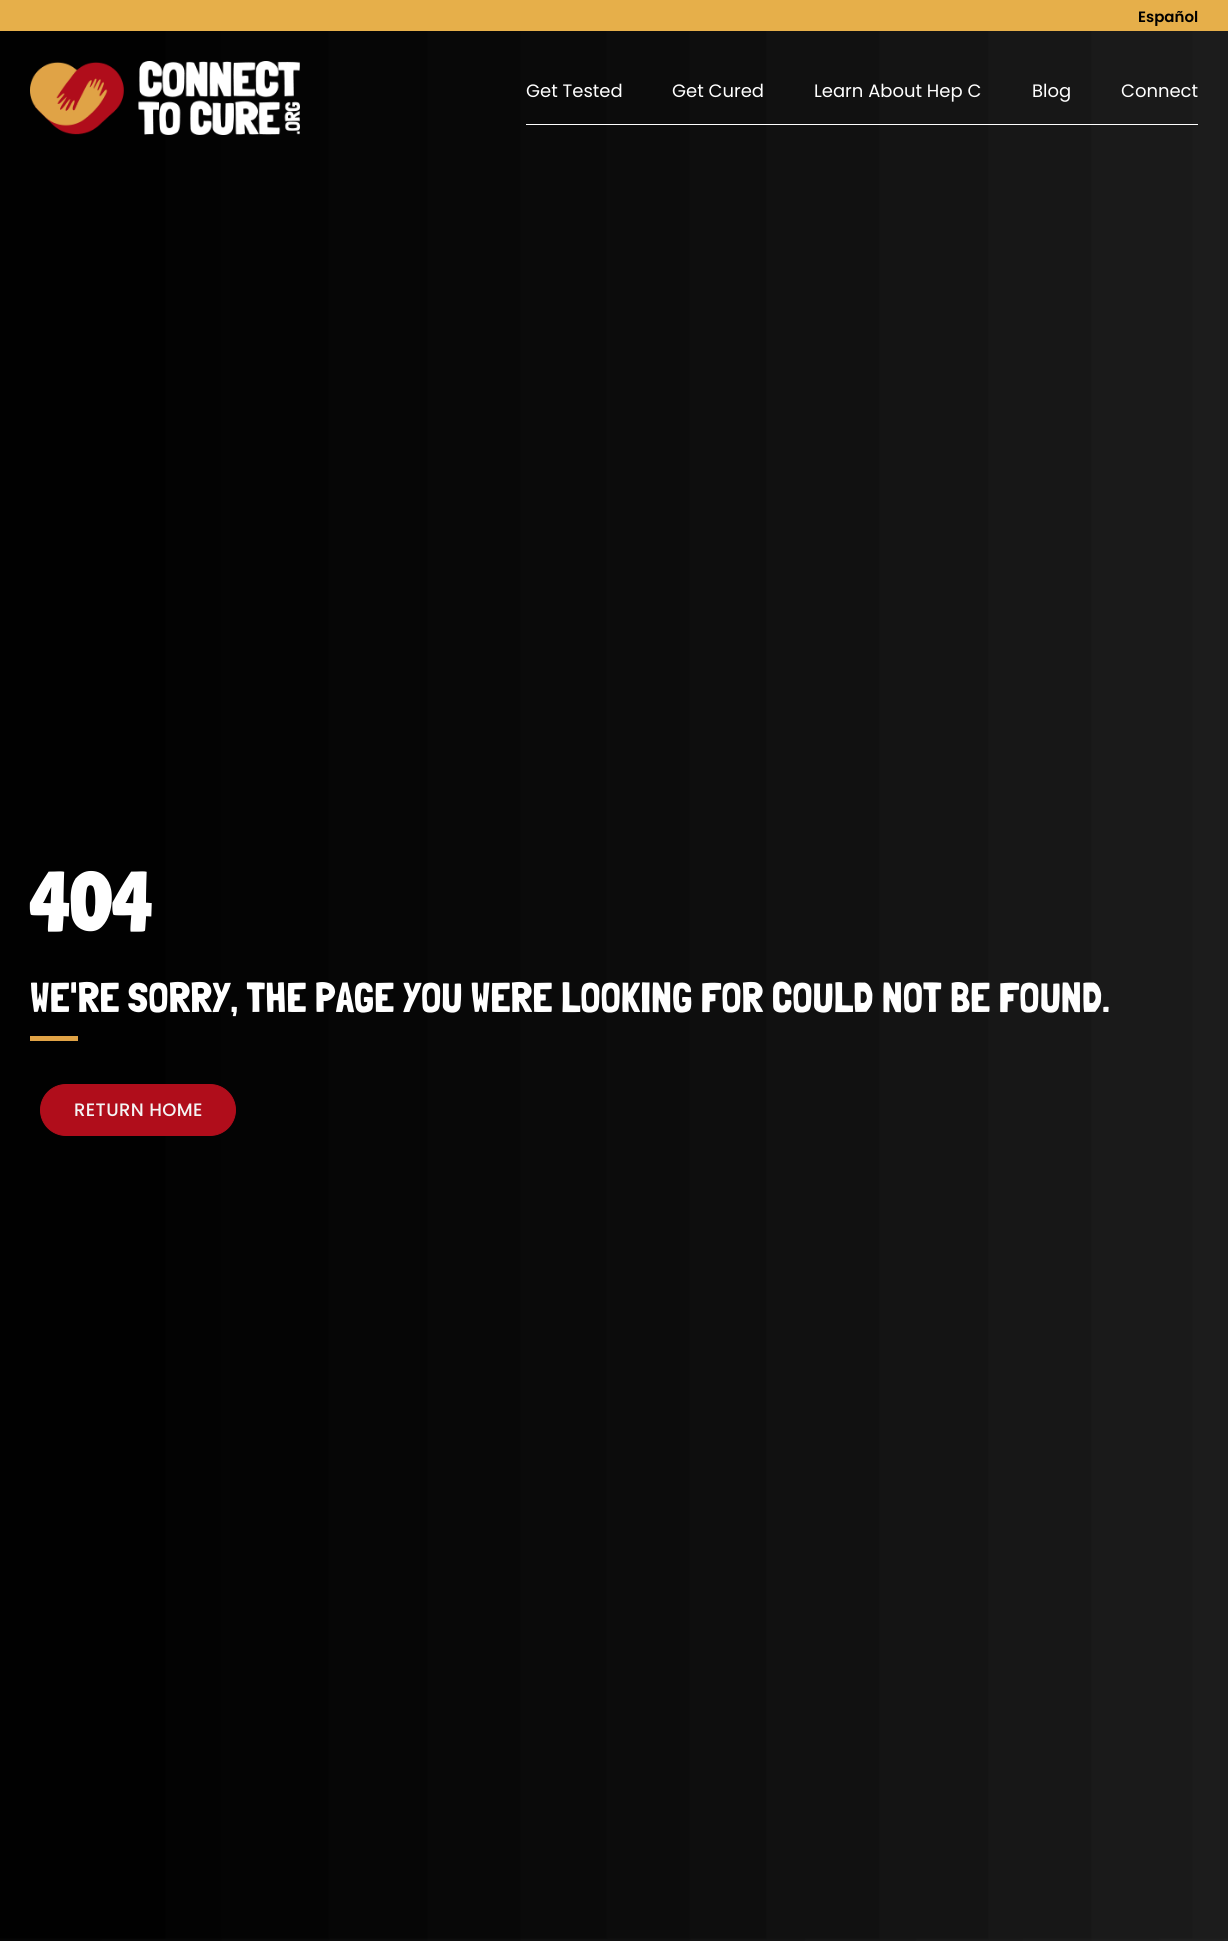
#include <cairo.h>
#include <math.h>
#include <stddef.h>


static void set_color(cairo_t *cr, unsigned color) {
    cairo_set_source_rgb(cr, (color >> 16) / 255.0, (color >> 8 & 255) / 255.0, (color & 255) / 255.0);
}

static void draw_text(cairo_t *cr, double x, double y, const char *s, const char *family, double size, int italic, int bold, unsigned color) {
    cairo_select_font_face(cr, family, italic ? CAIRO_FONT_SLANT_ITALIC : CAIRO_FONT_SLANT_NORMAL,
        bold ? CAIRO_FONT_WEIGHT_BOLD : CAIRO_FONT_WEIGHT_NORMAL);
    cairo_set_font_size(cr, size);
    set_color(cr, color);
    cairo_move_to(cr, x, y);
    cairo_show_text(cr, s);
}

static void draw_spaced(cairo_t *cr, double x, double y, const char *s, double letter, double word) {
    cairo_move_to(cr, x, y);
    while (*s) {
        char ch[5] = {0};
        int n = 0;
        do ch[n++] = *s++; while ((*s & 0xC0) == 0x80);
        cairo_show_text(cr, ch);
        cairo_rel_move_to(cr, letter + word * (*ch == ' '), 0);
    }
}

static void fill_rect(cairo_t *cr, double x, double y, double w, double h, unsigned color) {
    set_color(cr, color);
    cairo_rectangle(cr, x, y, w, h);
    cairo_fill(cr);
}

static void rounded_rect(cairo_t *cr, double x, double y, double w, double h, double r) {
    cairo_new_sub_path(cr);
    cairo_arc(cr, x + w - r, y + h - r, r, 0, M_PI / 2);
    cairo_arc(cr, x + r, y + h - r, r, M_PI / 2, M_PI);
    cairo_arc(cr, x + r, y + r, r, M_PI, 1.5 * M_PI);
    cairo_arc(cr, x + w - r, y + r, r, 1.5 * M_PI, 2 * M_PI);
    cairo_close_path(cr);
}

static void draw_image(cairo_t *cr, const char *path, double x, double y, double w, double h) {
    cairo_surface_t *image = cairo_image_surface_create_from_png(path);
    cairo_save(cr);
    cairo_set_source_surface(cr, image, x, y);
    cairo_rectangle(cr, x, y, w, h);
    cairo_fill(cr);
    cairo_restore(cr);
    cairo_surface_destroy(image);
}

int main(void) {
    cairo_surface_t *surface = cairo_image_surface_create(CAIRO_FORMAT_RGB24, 1228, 1941);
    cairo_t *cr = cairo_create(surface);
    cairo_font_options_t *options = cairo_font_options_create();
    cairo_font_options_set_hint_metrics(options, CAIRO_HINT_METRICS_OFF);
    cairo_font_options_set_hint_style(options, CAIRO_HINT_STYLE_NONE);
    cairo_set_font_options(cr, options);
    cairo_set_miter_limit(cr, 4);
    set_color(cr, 0xFFFFFF);
    cairo_paint(cr);
    fill_rect(cr, 0, 0, 1228, 31, 0xE6AF4A);
    draw_text(cr, 1138, 22, "Español", "Poppins SemiBold", 15, 0, 0, 0x000000);
    draw_image(cr, "assets/img2.png", 0, 31, 1228, 1910);
    draw_image(cr, "assets/img1.png", 30, 61, 270, 74);
    fill_rect(cr, 526, 124, 672, 1, 0xFFFFFF);
    draw_text(cr, 526, 97, "Get Tested", "Poppins", 18, 0, 0, 0xFFFFFF);
    draw_text(cr, 672, 97, "Get Cured", "Poppins", 18, 0, 0, 0xFFFFFF);
    draw_text(cr, 814, 97, "Learn About Hep C", "Poppins", 18, 0, 0, 0xFFFFFF);
    draw_text(cr, 1032, 97, "Blog", "Poppins", 18, 0, 0, 0xFFFFFF);
    draw_text(cr, 1121, 97, "Connect", "Poppins", 18, 0, 0, 0xFFFFFF);
    draw_text(cr, 30, 931, "404", "Londrina Solid Black", 84, 0, 0, 0xFFFFFF);
    draw_text(cr, 30, 1012, "WE'RE SORRY, THE PAGE YOU WERE LOOKING FOR COULD NOT BE FOUND.", "Londrina Solid", 42, 0, 0, 0xFFFFFF);
    fill_rect(cr, 30, 1036, 48, 5, 0xE0A346);
    set_color(cr, 0xB00D1B);
    rounded_rect(cr, 40.5, 1084.5, 195, 51, 25.5);
    cairo_fill_preserve(cr);
    cairo_set_line_width(cr, 1);
    cairo_stroke(cr);
    cairo_select_font_face(cr, "Poppins Medium", CAIRO_FONT_SLANT_NORMAL, CAIRO_FONT_WEIGHT_NORMAL);
    cairo_set_font_size(cr, 18);
    set_color(cr, 0xF4F4F4);
    draw_spaced(cr, 74, 1116, "RETURN HOME", 0.4, 0);
    cairo_surface_write_to_png(surface, "output.png");
    cairo_font_options_destroy(options);
    cairo_destroy(cr);
    cairo_surface_destroy(surface);
    return 0;
}
